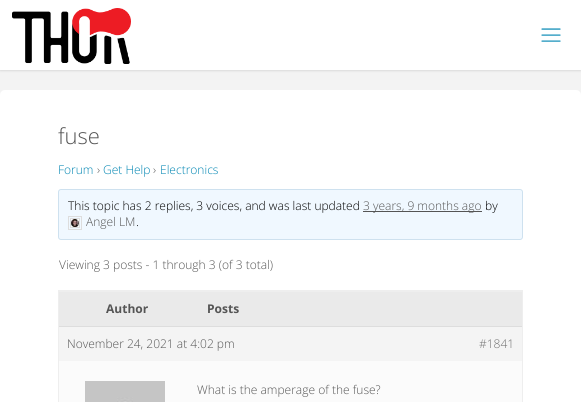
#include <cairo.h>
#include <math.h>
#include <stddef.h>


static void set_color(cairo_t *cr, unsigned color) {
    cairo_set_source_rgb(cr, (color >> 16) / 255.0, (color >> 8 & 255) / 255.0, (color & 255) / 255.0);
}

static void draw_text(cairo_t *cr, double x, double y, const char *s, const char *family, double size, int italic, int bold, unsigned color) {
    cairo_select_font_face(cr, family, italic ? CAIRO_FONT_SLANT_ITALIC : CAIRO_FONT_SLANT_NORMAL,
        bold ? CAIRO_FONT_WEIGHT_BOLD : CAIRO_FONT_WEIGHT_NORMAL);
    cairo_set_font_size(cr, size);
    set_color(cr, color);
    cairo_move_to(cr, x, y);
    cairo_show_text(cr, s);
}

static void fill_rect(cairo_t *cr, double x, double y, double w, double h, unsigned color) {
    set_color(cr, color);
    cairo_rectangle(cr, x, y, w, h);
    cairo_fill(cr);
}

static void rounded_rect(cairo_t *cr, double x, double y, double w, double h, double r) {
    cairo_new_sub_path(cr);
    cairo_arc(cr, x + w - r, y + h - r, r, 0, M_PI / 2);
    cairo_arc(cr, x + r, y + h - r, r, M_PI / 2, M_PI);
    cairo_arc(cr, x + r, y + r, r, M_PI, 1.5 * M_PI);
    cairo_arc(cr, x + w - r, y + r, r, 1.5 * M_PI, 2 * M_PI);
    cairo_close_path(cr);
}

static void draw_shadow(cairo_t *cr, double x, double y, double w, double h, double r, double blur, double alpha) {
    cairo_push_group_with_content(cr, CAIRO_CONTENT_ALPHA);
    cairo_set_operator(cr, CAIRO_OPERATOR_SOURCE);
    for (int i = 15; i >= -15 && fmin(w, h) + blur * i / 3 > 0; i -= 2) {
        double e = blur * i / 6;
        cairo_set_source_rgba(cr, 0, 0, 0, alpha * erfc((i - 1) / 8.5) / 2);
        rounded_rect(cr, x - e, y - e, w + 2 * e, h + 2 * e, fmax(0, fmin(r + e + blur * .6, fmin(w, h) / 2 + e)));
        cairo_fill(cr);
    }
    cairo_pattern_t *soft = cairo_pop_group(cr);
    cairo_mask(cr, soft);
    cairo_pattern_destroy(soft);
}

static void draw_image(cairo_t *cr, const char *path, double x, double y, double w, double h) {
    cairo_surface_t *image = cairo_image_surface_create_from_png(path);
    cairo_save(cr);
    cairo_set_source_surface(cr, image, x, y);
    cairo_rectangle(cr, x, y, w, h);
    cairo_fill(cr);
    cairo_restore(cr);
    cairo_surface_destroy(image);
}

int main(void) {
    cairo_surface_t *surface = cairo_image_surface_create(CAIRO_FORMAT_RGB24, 581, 402);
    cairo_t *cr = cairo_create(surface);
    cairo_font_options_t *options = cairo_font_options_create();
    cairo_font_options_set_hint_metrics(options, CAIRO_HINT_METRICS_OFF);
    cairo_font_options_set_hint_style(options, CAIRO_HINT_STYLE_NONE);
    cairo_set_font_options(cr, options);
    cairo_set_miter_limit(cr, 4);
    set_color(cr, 0xF3F3F3);
    cairo_paint(cr);
    set_color(cr, 0x000000);
    draw_shadow(cr, 0, 0, 581, 70, 0, 1.5, 0.2);
    fill_rect(cr, 0, 0, 581, 70, 0xFFFFFF);
    draw_image(cr, "assets/img1.png", 12, 8, 119, 56);
    draw_image(cr, "assets/img2.png", 541, 28, 20, 14);
    rounded_rect(cr, 0, 90, 581, 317, 5);
    cairo_fill(cr);
    draw_text(cr, 58, 144, "fuse", "Open Sans Light", 22, 0, 0, 0x555555);
    draw_text(cr, 58, 174, "Forum", "Open Sans Light", 12, 0, 0, 0x0085B2);
    draw_text(cr, 97, 174, "›", "Open Sans Light", 12, 0, 0, 0x555555);
    draw_text(cr, 103, 174, "Get Help", "Open Sans Light", 12, 0, 0, 0x0085B2);
    draw_text(cr, 153, 174, "›", "Open Sans Light", 12, 0, 0, 0x555555);
    draw_text(cr, 160, 174, "Electronics", "Open Sans Light", 12, 0, 0, 0x0085B2);
    set_color(cr, 0xF0F8FF);
    rounded_rect(cr, 58.5, 189.5, 464, 50, 2.5);
    cairo_fill_preserve(cr);
    set_color(cr, 0xCEE1EF);
    cairo_set_line_width(cr, 1);
    cairo_stroke(cr);
    draw_text(cr, 68, 210, "This topic has 2 replies, 3 voices, and was last updated", "Open Sans Light", 12, 0, 0, 0x000000);
    fill_rect(cr, 363, 211, 119, 1, 0x555555);
    draw_text(cr, 363, 210, "3 years, 9 months ago", "Open Sans Light", 12, 0, 0, 0x555555);
    draw_text(cr, 485, 210, "by", "Open Sans Light", 12, 0, 0, 0x000000);
    cairo_rectangle(cr, 68.5, 216.5, 13, 13);
    set_color(cr, 0xDDDDDD);
    cairo_stroke(cr);
    cairo_rectangle(cr, 70.5, 218.5, 9, 9);
    cairo_stroke(cr);
    draw_image(cr, "assets/img3.png", 71, 219, 8, 8);
    draw_text(cr, 86, 226, "Angel LM", "Open Sans Light", 12, 0, 0, 0x555555);
    draw_text(cr, 136, 226, ".", "Open Sans Light", 12, 0, 0, 0x000000);
    draw_text(cr, 59, 269, "Viewing 3 posts - 1 through 3 (of 3 total)", "Open Sans Light", 12, 0, 0, 0x555555);
    cairo_rectangle(cr, 58.5, 290.5, 464, 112);
    set_color(cr, 0xEEEEEE);
    cairo_stroke(cr);
    fill_rect(cr, 59, 292, 463, 34, 0xEAEAEA);
    fill_rect(cr, 59, 291, 463, 1, 0xEEEEEE);
    draw_text(cr, 106, 313, "Author", "Open Sans", 12, 0, 1, 0x555555);
    draw_text(cr, 207, 313, "Posts", "Open Sans", 12, 0, 1, 0x555555);
    fill_rect(cr, 59, 327, 463, 34, 0xF4F4F4);
    fill_rect(cr, 59, 326, 463, 1, 0xDDDDDD);
    draw_text(cr, 67, 348, "November 24, 2021 at 4:02 pm", "Open Sans Light", 12, 0, 0, 0x555555);
    draw_text(cr, 479, 348, "#1841", "Open Sans Light", 12, 0, 0, 0x707070);
    fill_rect(cr, 59, 361, 463, 41, 0xFBFBFB);
    draw_image(cr, "assets/img4.png", 85, 381, 80, 21);
    draw_text(cr, 197, 394, "What is the amperage of the fuse?", "Open Sans Light", 12, 0, 0, 0x555555);
    cairo_surface_write_to_png(surface, "output.png");
    cairo_font_options_destroy(options);
    cairo_destroy(cr);
    cairo_surface_destroy(surface);
    return 0;
}
